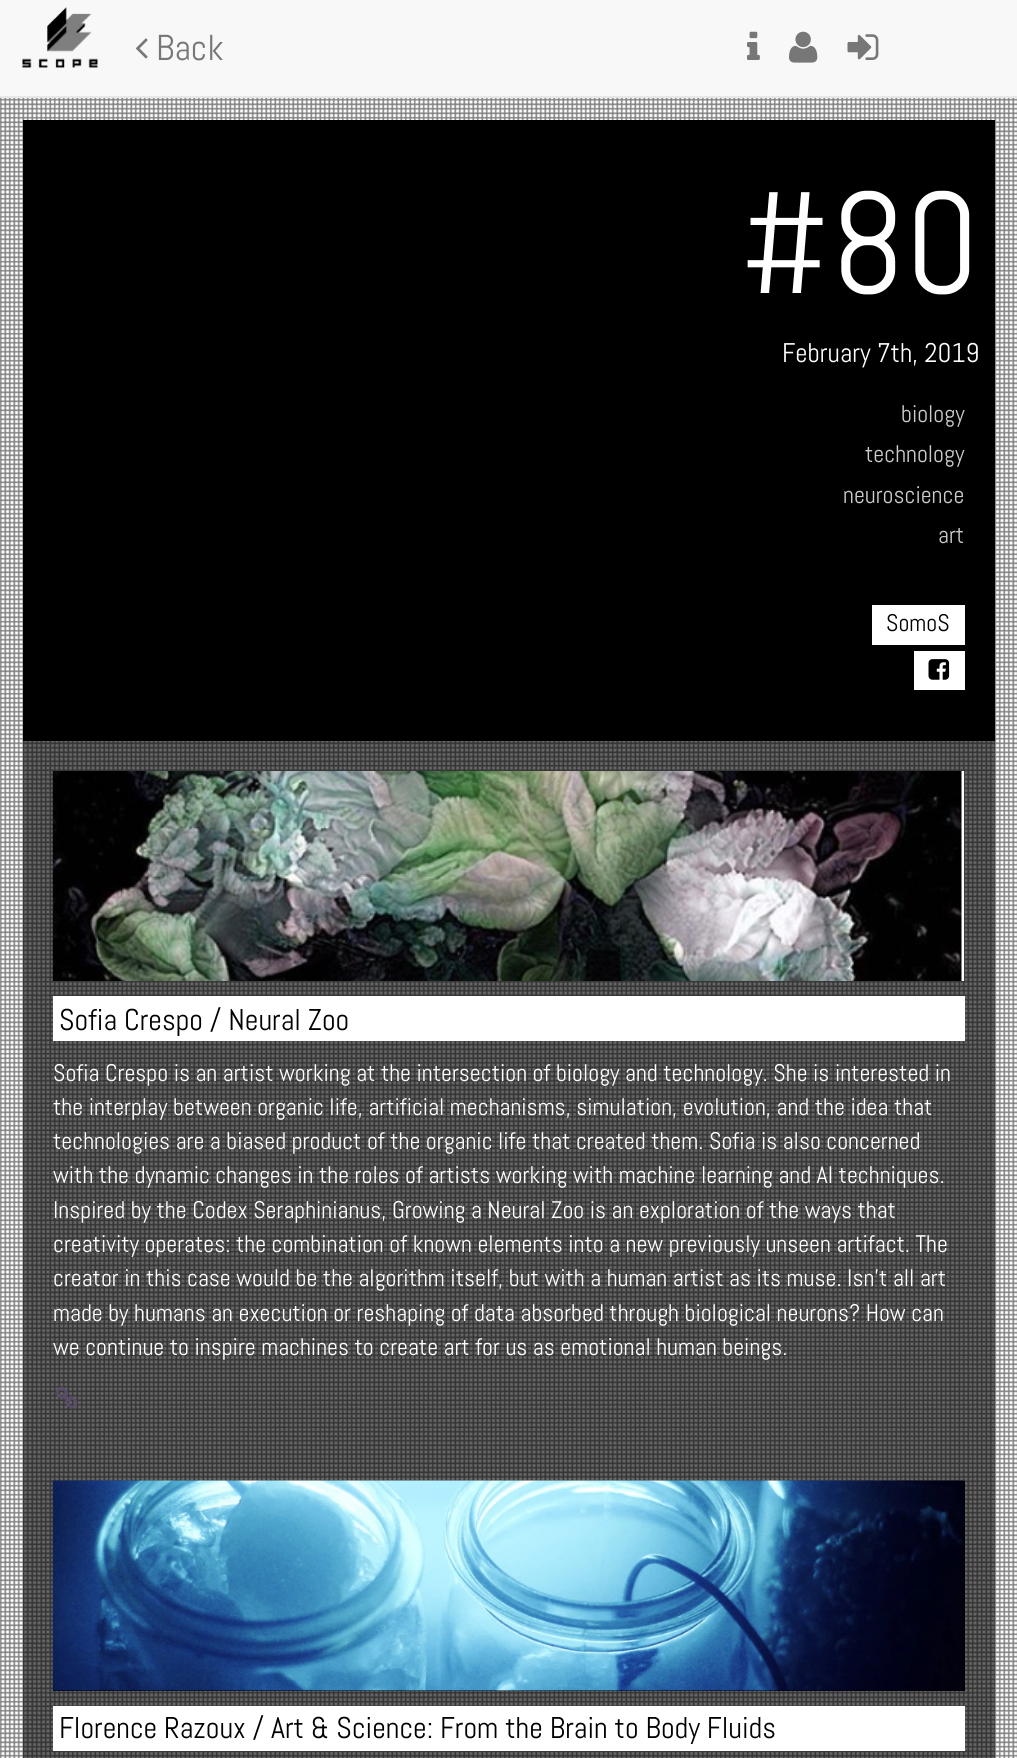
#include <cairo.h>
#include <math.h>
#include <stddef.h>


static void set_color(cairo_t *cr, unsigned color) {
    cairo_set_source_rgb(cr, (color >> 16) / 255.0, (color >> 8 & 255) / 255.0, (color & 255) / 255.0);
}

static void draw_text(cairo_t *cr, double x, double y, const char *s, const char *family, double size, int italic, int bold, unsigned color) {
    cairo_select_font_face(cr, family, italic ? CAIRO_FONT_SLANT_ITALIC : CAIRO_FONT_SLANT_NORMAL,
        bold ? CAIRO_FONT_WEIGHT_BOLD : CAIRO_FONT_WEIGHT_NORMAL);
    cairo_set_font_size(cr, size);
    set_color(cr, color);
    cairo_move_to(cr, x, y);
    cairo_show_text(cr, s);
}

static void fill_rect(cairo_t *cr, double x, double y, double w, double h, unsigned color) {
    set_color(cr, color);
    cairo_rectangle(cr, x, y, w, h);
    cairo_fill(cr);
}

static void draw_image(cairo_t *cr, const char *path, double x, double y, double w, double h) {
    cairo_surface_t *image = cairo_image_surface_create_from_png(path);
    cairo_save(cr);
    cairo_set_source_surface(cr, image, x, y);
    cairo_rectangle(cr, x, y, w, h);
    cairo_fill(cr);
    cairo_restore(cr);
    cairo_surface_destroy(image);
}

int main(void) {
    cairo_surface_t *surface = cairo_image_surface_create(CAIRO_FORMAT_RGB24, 1017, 1758);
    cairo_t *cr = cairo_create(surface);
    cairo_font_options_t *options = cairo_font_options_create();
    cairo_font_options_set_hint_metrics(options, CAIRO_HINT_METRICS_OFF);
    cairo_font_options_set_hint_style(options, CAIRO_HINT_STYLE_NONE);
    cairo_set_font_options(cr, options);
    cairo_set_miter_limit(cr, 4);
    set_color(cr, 0xFFFFFF);
    cairo_paint(cr);
    fill_rect(cr, 0, 0, 1017, 96, 0xF8F8F8);
    fill_rect(cr, 0, 96, 1017, 2, 0xE7E7E7);
    draw_image(cr, "assets/img1.png", 22, 7, 76, 61);
    draw_image(cr, "assets/img2.png", 136, 38, 12, 21);
    draw_text(cr, 156, 60, "Back", "Abel", 36, 0, 0, 0x777777);
    draw_image(cr, "assets/img3.png", 747, 31, 13, 29);
    draw_image(cr, "assets/img4.png", 789, 31, 29, 32);
    draw_image(cr, "assets/img5.png", 847, 34, 32, 26);
    draw_image(cr, "assets/img6.png", 0, 98, 1017, 1660);
    fill_rect(cr, 23, 120, 972, 621, 0x000000);
    draw_text(cr, 739, 293, "#80", "Abel", 144, 0, 0, 0xFFFFFF);
    draw_text(cr, 782, 362, "February 7th, 2019", "Abel", 27, 0, 0, 0xFFFFFF);
    draw_text(cr, 901, 422, "biology", "Abel", 24, 0, 0, 0xCCCCCC);
    draw_text(cr, 865, 462, "technology", "Abel", 24, 0, 0, 0xCCCCCC);
    draw_text(cr, 843, 503, "neuroscience", "Abel", 24, 0, 0, 0xCCCCCC);
    draw_text(cr, 938, 543, "art", "Abel", 24, 0, 0, 0xCCCCCC);
    fill_rect(cr, 872, 605, 93, 40, 0xFFFFFF);
    draw_text(cr, 886, 631, "SomoS", "Abel", 24, 0, 0, 0x000000);
    fill_rect(cr, 914, 651, 51, 39, 0xFFFFFF);
    draw_image(cr, "assets/img7.png", 928, 659, 22, 21);
    cairo_set_source_rgba(cr, 0, 0, 0, 0.6);
    cairo_rectangle(cr, 23, 741, 972, 1017);
    cairo_fill(cr);
    fill_rect(cr, 964, 771, 1, 210, 0x000000);
    draw_image(cr, "assets/img8.png", 52, 771, 913, 210);
    fill_rect(cr, 53, 996, 912, 45, 0xFFFFFF);
    draw_text(cr, 59, 1030, "Sofia Crespo / Neural Zoo", "Abel", 30, 0, 0, 0x000000);
    draw_text(cr, 53, 1081, "Sofia Crespo is an artist working at the intersection of biology and technology. She is interested in", "Abel", 24, 0, 0, 0xFFFFFF);
    draw_text(cr, 53, 1115, "the interplay between organic life, artificial mechanisms, simulation, evolution, and the idea that", "Abel", 24, 0, 0, 0xFFFFFF);
    draw_text(cr, 53, 1149, "technologies are a biased product of the organic life that created them. Sofia is also concerned", "Abel", 24, 0, 0, 0xFFFFFF);
    draw_text(cr, 53, 1183, "with the dynamic changes in the roles of artists working with machine learning and AI techniques.", "Abel", 24, 0, 0, 0xFFFFFF);
    draw_text(cr, 53, 1218, "Inspired by the Codex Seraphinianus, Growing a Neural Zoo is an exploration of the ways that", "Abel", 24, 0, 0, 0xFFFFFF);
    draw_text(cr, 53, 1252, "creativity operates: the combination of known elements into a new previously unseen artifact. The", "Abel", 24, 0, 0, 0xFFFFFF);
    draw_text(cr, 53, 1286, "creator in this case would be the algorithm itself, but with a human artist as its muse. Isn’t all art", "Abel", 24, 0, 0, 0xFFFFFF);
    draw_text(cr, 53, 1321, "made by humans an execution or reshaping of data absorbed through biological neurons? How can", "Abel", 24, 0, 0, 0xFFFFFF);
    draw_text(cr, 53, 1355, "we continue to inspire machines to create art for us as emotional human beings.", "Abel", 24, 0, 0, 0xFFFFFF);
    draw_image(cr, "assets/img9.png", 55, 1386, 23, 23);
    fill_rect(cr, 53, 1481, 912, 210, 0x000000);
    draw_image(cr, "assets/img10.png", 52, 1480, 913, 211);
    fill_rect(cr, 53, 1706, 912, 45, 0xFFFFFF);
    draw_text(cr, 59, 1738, "Florence Razoux / Art & Science: From the Brain to Body Fluids", "Abel", 30, 0, 0, 0x000000);
    cairo_surface_write_to_png(surface, "output.png");
    cairo_font_options_destroy(options);
    cairo_destroy(cr);
    cairo_surface_destroy(surface);
    return 0;
}
